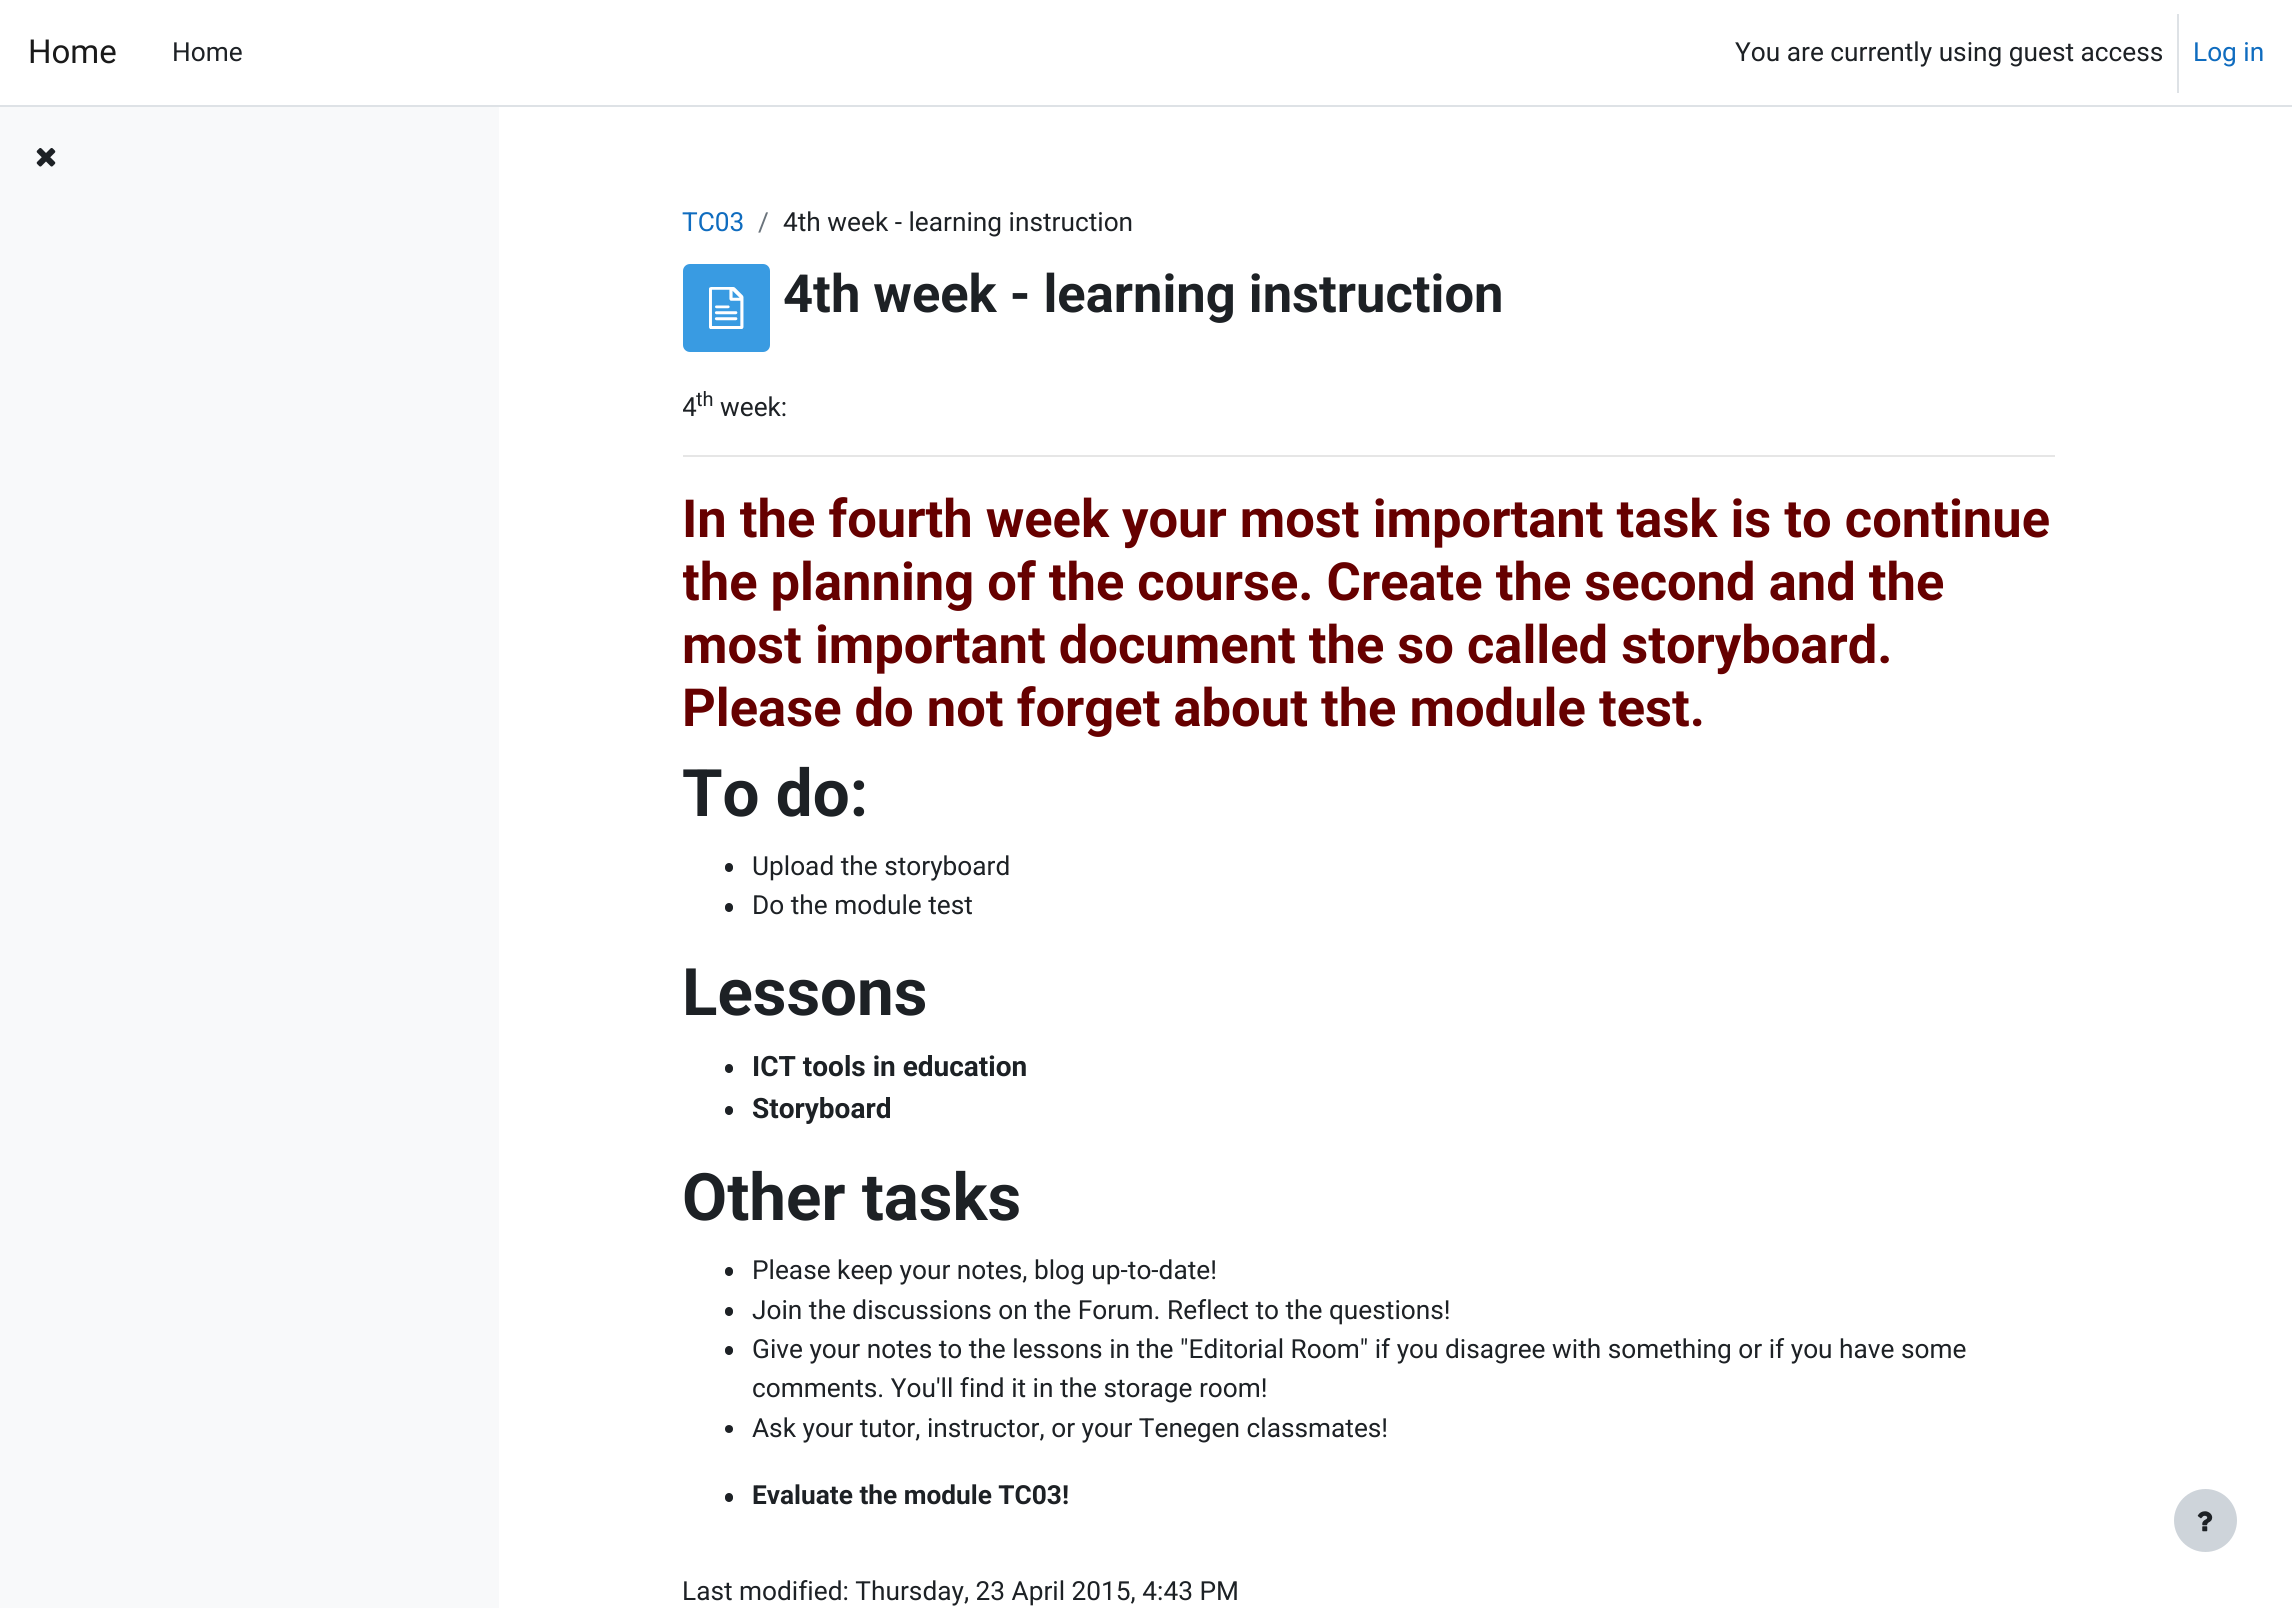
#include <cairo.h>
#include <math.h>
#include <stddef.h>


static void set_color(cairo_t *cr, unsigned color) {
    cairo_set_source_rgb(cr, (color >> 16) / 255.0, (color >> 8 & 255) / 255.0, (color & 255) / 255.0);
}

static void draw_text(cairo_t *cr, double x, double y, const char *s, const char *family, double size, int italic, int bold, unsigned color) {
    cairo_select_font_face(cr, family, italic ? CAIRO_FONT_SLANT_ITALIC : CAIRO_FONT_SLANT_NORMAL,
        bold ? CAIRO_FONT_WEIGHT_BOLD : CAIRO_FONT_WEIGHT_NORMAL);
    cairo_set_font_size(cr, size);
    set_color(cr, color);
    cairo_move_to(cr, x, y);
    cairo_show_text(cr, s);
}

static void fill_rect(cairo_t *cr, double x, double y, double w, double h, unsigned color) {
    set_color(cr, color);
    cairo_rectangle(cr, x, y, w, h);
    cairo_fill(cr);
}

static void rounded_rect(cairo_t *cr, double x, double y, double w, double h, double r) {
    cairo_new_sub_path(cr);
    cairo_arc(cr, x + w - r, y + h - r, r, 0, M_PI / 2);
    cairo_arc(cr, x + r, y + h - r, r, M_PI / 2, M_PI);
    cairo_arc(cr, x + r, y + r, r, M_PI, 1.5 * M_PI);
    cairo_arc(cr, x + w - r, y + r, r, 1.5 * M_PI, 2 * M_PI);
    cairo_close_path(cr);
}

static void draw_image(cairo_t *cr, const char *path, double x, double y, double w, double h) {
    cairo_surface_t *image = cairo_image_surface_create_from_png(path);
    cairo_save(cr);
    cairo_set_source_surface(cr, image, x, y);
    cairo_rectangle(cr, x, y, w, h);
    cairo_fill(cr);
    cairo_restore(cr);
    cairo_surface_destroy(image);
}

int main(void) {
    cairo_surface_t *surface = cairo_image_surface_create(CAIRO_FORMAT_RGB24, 2292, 1608);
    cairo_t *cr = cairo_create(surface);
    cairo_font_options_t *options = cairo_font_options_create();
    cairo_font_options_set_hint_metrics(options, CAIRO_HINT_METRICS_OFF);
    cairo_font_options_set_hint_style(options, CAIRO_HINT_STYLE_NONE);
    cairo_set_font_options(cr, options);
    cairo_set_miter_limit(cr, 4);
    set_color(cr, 0xFFFFFF);
    cairo_paint(cr);
    fill_rect(cr, 0, 105, 2292, 2, 0xDEE2E6);
    draw_text(cr, 28, 63, "Home", "Roboto", 33, 0, 0, 0x1A1A1A);
    draw_text(cr, 172, 61, "Home", "Roboto", 26.25, 0, 0, 0x1D2125);
    draw_text(cr, 1735, 61, "You are currently using guest access", "Roboto", 26.25, 0, 0, 0x1D2125);
    fill_rect(cr, 2177, 14, 2, 79, 0xDEE2E6);
    draw_text(cr, 2193, 61, "Log in", "Roboto", 26.25, 0, 0, 0x0F6CBF);
    fill_rect(cr, 0, 107, 499, 1501, 0xF8F9FA);
    draw_image(cr, "assets/img1.png", 36, 148, 20, 19);
    draw_text(cr, 682, 231, "TC03", "Roboto", 26.25, 0, 0, 0x0F6CBF);
    draw_text(cr, 758, 231, "/", "Roboto", 26.25, 0, 0, 0x6A737B);
    draw_text(cr, 783, 231, "4th week - learning instruction", "Roboto", 26.25, 0, 0, 0x1D2125);
    set_color(cr, 0x399BE2);
    rounded_rect(cr, 683, 264, 87, 88, 7);
    cairo_fill(cr);
    draw_image(cr, "assets/img2.png", 709, 287, 35, 42);
    draw_text(cr, 783, 312, "4th week - learning instruction", "Roboto", 52.5, 0, 1, 0x1D2125);
    cairo_save(cr);
    cairo_rectangle(cr, 683, 389, 1372, 1155);
    cairo_clip(cr);
    draw_text(cr, 682, 416, "4", "Roboto", 26.25, 0, 0, 0x1D2125);
    cairo_restore(cr);
    draw_text(cr, 696, 406, "th", "Roboto", 20, 0, 0, 0x1D2125);
    draw_text(cr, 720, 416, "week:", "Roboto", 26.25, 0, 0, 0x1D2125);
    fill_rect(cr, 683, 455, 1372, 2, 0xE6E6E6);
    draw_text(cr, 682, 537, "In the fourth week your most important task is to continue", "Roboto", 52.5, 0, 1, 0x660000);
    cairo_save(cr);
    cairo_rectangle(cr, 683, 389, 1372, 1155);
    cairo_clip(cr);
    draw_text(cr, 682, 600, "the planning of the course. Create the second and the", "Roboto", 52.5, 0, 1, 0x660000);
    cairo_restore(cr);
    draw_text(cr, 682, 663, "most important document the so called storyboard.", "Roboto", 52.5, 0, 1, 0x660000);
    draw_text(cr, 682, 726, "Please do not forget about the module test.", "Roboto", 52.5, 0, 1, 0x660000);
    draw_text(cr, 682, 816, "To do:", "Roboto", 65.5, 0, 1, 0x1D2125);
    rounded_rect(cr, 725, 863, 8, 9, 4);
    cairo_fill(cr);
    draw_text(cr, 752, 875, "Upload the storyboard", "Roboto", 26.25, 0, 0, 0x1D2125);
    rounded_rect(cr, 725, 903, 8, 9, 4);
    cairo_fill(cr);
    draw_text(cr, 752, 914, "Do the module test", "Roboto", 26.25, 0, 0, 0x1D2125);
    draw_text(cr, 682, 1015, "Lessons", "Roboto", 65.5, 0, 1, 0x1D2125);
    rounded_rect(cr, 725, 1064, 8, 9, 4);
    cairo_fill(cr);
    draw_text(cr, 752, 1076, "ICT tools in education", "Roboto", 28, 0, 1, 0x1D2125);
    rounded_rect(cr, 725, 1106, 8, 9, 4);
    cairo_fill(cr);
    draw_text(cr, 752, 1118, "Storyboard", "Roboto", 28, 0, 1, 0x1D2125);
    draw_text(cr, 682, 1220, "Other tasks", "Roboto", 65.5, 0, 1, 0x1D2125);
    rounded_rect(cr, 725, 1267, 8, 9, 4);
    cairo_fill(cr);
    draw_text(cr, 752, 1279, "Please keep your notes, blog up-to-date!", "Roboto", 26.25, 0, 0, 0x1D2125);
    rounded_rect(cr, 725, 1307, 8, 9, 4);
    cairo_fill(cr);
    draw_text(cr, 752, 1319, "Join the discussions on the Forum. Reflect to the questions!", "Roboto", 26.25, 0, 0, 0x1D2125);
    rounded_rect(cr, 725, 1346, 8, 9, 4);
    cairo_fill(cr);
    draw_text(cr, 752, 1358, "Give your notes to the lessons in the \"Editorial Room\" if you disagree with something or if you have some", "Roboto", 26.25, 0, 0, 0x1D2125);
    draw_text(cr, 752, 1397, "comments. You'll find it in the storage room!", "Roboto", 26.25, 0, 0, 0x1D2125);
    cairo_new_path(cr);
    cairo_arc(cr, 729, 1429, 4, 0, 2 * M_PI);
    cairo_fill(cr);
    draw_text(cr, 752, 1437, "Ask your tutor, instructor, or your Tenegen classmates!", "Roboto", 26.25, 0, 0, 0x1D2125);
    rounded_rect(cr, 725, 1493, 8, 9, 4);
    cairo_fill(cr);
    draw_text(cr, 752, 1504, "Evaluate the module TC03!", "Roboto", 26.25, 0, 1, 0x1D2125);
    draw_text(cr, 682, 1600, "Last modified: Thursday, 23 April 2015, 4:43 PM", "Roboto", 26.25, 0, 0, 0x1D2125);
    set_color(cr, 0xCED4DA);
    cairo_new_path(cr);
    cairo_arc(cr, 2205.5, 1520.5, 31.5, 0, 2 * M_PI);
    cairo_fill(cr);
    draw_image(cr, "assets/img3.png", 2197, 1511, 16, 21);
    cairo_surface_write_to_png(surface, "output.png");
    cairo_font_options_destroy(options);
    cairo_destroy(cr);
    cairo_surface_destroy(surface);
    return 0;
}
